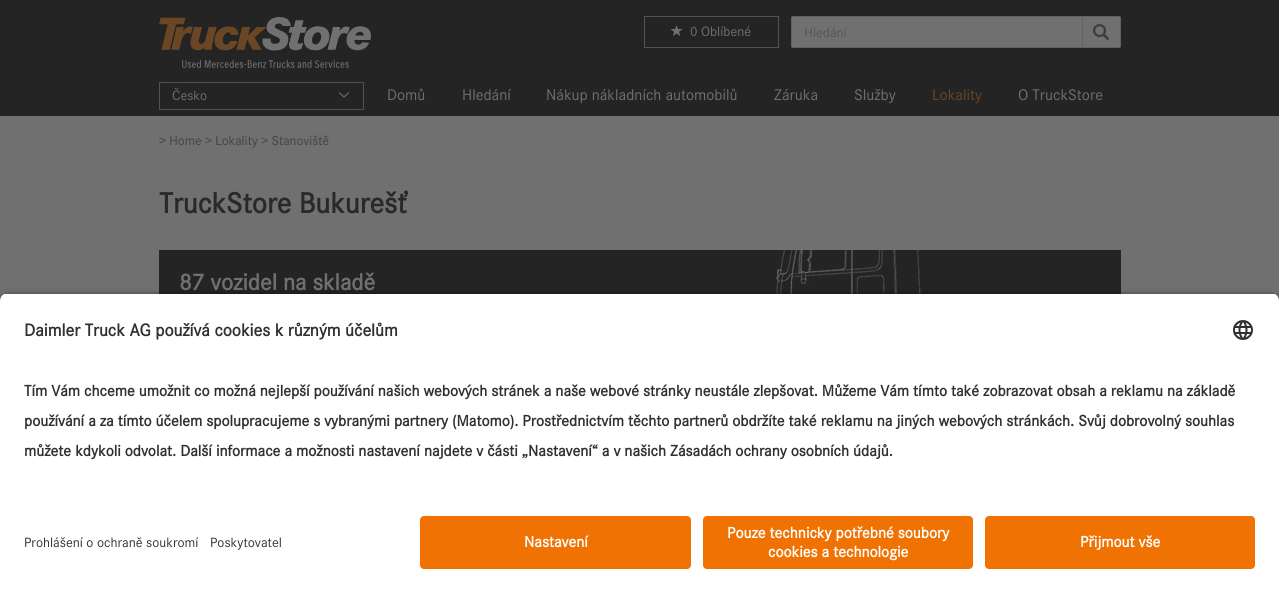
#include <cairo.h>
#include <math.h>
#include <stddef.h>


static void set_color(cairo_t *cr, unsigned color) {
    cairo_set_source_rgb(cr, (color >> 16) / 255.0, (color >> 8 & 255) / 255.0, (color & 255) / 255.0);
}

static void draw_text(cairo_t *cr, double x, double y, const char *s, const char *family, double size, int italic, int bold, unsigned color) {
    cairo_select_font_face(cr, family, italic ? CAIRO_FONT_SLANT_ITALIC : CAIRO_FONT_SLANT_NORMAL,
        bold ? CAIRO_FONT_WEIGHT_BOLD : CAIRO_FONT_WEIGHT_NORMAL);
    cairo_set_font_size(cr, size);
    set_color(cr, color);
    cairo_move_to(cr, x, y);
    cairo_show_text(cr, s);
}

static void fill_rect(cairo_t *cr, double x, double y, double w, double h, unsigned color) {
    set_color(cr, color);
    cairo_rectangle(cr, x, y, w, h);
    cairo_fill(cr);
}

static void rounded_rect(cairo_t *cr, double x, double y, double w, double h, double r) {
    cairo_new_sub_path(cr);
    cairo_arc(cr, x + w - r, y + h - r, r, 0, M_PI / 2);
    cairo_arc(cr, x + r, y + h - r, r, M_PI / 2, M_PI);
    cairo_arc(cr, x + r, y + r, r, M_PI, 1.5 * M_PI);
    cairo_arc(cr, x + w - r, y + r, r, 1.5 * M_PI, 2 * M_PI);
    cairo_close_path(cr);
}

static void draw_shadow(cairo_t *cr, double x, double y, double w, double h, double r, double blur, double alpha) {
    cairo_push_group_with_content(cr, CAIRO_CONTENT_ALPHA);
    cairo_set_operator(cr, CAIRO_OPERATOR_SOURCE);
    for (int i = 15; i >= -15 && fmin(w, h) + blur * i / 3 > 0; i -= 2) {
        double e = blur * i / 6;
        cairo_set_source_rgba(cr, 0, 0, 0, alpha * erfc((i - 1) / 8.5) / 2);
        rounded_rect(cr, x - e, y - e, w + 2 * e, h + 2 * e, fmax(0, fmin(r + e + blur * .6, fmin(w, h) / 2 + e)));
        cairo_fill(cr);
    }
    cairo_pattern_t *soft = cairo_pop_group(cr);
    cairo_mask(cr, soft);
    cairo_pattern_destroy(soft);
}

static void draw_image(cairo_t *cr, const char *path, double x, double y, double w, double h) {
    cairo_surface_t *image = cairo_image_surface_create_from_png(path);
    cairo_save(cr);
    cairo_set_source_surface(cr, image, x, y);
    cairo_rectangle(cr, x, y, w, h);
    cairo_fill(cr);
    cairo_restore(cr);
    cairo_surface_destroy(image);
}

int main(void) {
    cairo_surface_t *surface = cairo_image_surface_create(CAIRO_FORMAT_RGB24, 1279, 593);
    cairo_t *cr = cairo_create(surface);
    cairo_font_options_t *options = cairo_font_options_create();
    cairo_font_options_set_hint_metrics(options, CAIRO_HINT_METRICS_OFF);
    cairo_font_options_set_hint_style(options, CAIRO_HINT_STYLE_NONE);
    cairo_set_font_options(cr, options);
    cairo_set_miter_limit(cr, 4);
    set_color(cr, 0x707070);
    cairo_paint(cr);
    fill_rect(cr, 0, 0, 1279, 116, 0x242424);
    draw_image(cr, "assets/img1.png", 159, 17, 212, 51);
    cairo_rectangle(cr, 644.5, 16.5, 134, 31);
    set_color(cr, 0x525252);
    cairo_set_line_width(cr, 1);
    cairo_stroke(cr);
    draw_image(cr, "assets/img2.png", 670, 25, 13, 11);
    draw_text(cr, 690, 36, "0 Oblíbené", "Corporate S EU", 14, 0, 0, 0x707070);
    cairo_new_path(cr);
    cairo_move_to(cr, 1082.5, 16.5);
    cairo_line_to(cr, 1119, 16.5);
    cairo_curve_to(cr, 1120, 16.5, 1120.5, 17, 1120.5, 18);
    cairo_line_to(cr, 1120.5, 46);
    cairo_curve_to(cr, 1120.5, 47, 1120, 47.5, 1119, 47.5);
    cairo_line_to(cr, 1082.5, 47.5);
    cairo_close_path(cr);
    cairo_fill_preserve(cr);
    set_color(cr, 0x616161);
    cairo_stroke(cr);
    set_color(cr, 0x707070);
    cairo_new_path(cr);
    cairo_move_to(cr, 793, 16.5);
    cairo_line_to(cr, 1082.5, 16.5);
    cairo_line_to(cr, 1082.5, 47.5);
    cairo_line_to(cr, 793, 47.5);
    cairo_curve_to(cr, 792, 47.5, 791.5, 47, 791.5, 46);
    cairo_line_to(cr, 791.5, 18);
    cairo_curve_to(cr, 791.5, 17, 792, 16.5, 793, 16.5);
    cairo_close_path(cr);
    cairo_fill_preserve(cr);
    set_color(cr, 0x616161);
    cairo_stroke(cr);
    draw_text(cr, 804, 37, "Hledání", "Corporate S EU", 14, 0, 0, 0x555555);
    draw_image(cr, "assets/img3.png", 1093, 24, 16, 16);
    cairo_rectangle(cr, 159.5, 82.5, 204, 27);
    set_color(cr, 0x525252);
    cairo_stroke(cr);
    draw_text(cr, 172, 100, "Česko", "Corporate S EU", 14, 0, 0, 0x707070);
    draw_image(cr, "assets/img4.png", 338, 92, 12, 6);
    draw_text(cr, 387, 100, "Domů", "Corporate S EU", 16, 0, 0, 0x707070);
    draw_text(cr, 462, 100, "Hledání", "Corporate S EU", 16, 0, 0, 0x707070);
    draw_text(cr, 546, 100, "Nákup nákladních automobilů", "Corporate S EU", 16, 0, 0, 0x707070);
    draw_text(cr, 774, 100, "Záruka", "Corporate S EU", 16, 0, 0, 0x707070);
    draw_text(cr, 854, 100, "Služby", "Corporate S EU", 16, 0, 0, 0x707070);
    draw_text(cr, 932, 100, "Lokality", "Corporate S EU", 16, 0, 0, 0x6B4625);
    draw_text(cr, 1018, 100, "O TruckStore", "Corporate S EU", 16, 0, 0, 0x707070);
    draw_text(cr, 159, 145, "> Home > Lokality > Stanoviště", "Corporate S EU", 13.6, 0, 0, 0x424242);
    draw_text(cr, 159, 213, "TruckStore Bukurešť", "Corporate S EU", 30, 0, 1, 0x292929);
    fill_rect(cr, 159, 250, 962, 44, 0x242424);
    draw_image(cr, "assets/img5.png", 773, 250, 344, 44);
    draw_text(cr, 179, 290, "87 vozidel na skladě", "Corporate S EU", 24, 0, 1, 0x707070);
    set_color(cr, 0x000000);
    draw_shadow(cr, 0, 296, 1279, 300, 8, 3.5, 0.8);
    cairo_save(cr);
    cairo_new_path(cr);
    cairo_move_to(cr, 8, 293);
    cairo_line_to(cr, 1271, 293);
    cairo_curve_to(cr, 1275.5, 293, 1279, 296.5, 1279, 301);
    cairo_line_to(cr, 1279, 508);
    cairo_line_to(cr, 0, 508);
    cairo_line_to(cr, 0, 301);
    cairo_curve_to(cr, 0, 296.5, 3.5, 293, 8, 293);
    cairo_close_path(cr);
    cairo_clip(cr);
    fill_rect(cr, 0, 294, 1279, 214, 0xFFFFFF);
    cairo_restore(cr);
    draw_text(cr, 24, 336, "Daimler Truck AG používá cookies k různým účelům", "Corporate S EU", 18, 0, 1, 0x303030);
    draw_image(cr, "assets/img6.png", 1233, 320, 20, 20);
    draw_text(cr, 24, 396, "Tím Vám chceme umožnit co možná nejlepší používání našich webových stránek a naše webové stránky neustále zlepšovat. Můžeme Vám tímto také zobrazovat obsah a reklamu na základě", "Corporate S EU", 16, 0, 1, 0x303030);
    draw_text(cr, 24, 426, "používání a za tímto účelem spolupracujeme s vybranými partnery (Matomo). Prostřednictvím těchto partnerů obdržíte také reklamu na jiných webových stránkách. Svůj dobrovolný souhlas", "Corporate S EU", 16, 0, 1, 0x303030);
    draw_text(cr, 24, 456, "můžete kdykoli odvolat. Další informace a možnosti nastavení najdete v části „Nastavení“ a v našich Zásadách ochrany osobních údajů.", "Corporate S EU", 16, 0, 1, 0x303030);
    fill_rect(cr, 0, 508, 1279, 85, 0xFFFFFF);
    draw_text(cr, 24, 547, "Prohlášení o ochraně soukromí", "Corporate S EU", 14, 0, 0, 0x303030);
    draw_text(cr, 210, 547, "Poskytovatel", "Corporate S EU", 14, 0, 0, 0x303030);
    set_color(cr, 0xEF7203);
    rounded_rect(cr, 420, 516, 271, 53, 4);
    cairo_fill(cr);
    draw_text(cr, 524, 547, "Nastavení", "Corporate S EU", 16, 0, 1, 0xFFFFFF);
    set_color(cr, 0xEF7203);
    rounded_rect(cr, 703, 516, 270, 53, 4);
    cairo_fill(cr);
    draw_text(cr, 727, 538, "Pouze technicky potřebné soubory", "Corporate S EU", 16, 0, 1, 0xFFFFFF);
    draw_text(cr, 768, 557, "cookies a technologie", "Corporate S EU", 16, 0, 1, 0xFFFFFF);
    set_color(cr, 0xEF7203);
    rounded_rect(cr, 985, 516, 270, 53, 4);
    cairo_fill(cr);
    draw_text(cr, 1080, 547, "Přijmout vše", "Corporate S EU", 16, 0, 1, 0xFFFFFF);
    cairo_surface_write_to_png(surface, "output.png");
    cairo_font_options_destroy(options);
    cairo_destroy(cr);
    cairo_surface_destroy(surface);
    return 0;
}
